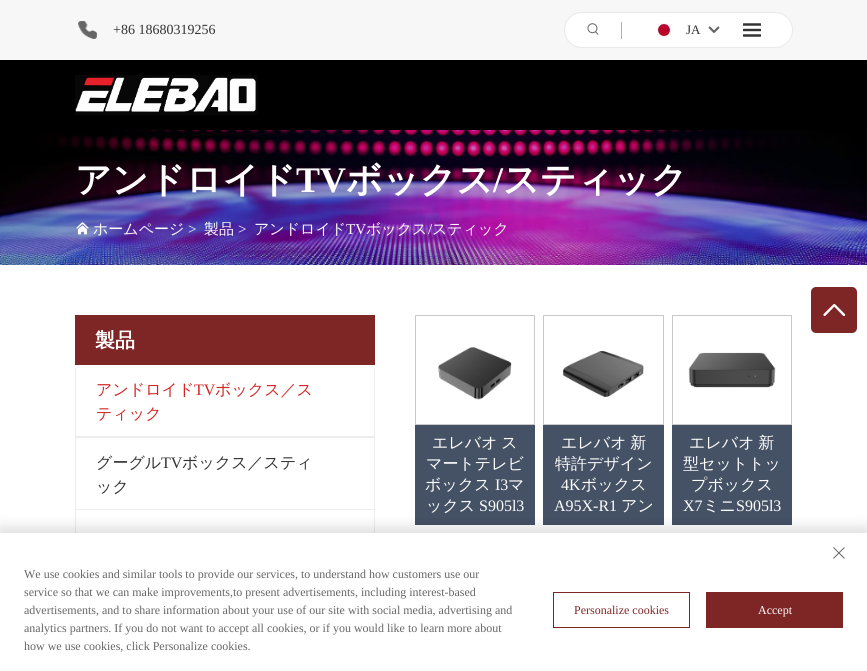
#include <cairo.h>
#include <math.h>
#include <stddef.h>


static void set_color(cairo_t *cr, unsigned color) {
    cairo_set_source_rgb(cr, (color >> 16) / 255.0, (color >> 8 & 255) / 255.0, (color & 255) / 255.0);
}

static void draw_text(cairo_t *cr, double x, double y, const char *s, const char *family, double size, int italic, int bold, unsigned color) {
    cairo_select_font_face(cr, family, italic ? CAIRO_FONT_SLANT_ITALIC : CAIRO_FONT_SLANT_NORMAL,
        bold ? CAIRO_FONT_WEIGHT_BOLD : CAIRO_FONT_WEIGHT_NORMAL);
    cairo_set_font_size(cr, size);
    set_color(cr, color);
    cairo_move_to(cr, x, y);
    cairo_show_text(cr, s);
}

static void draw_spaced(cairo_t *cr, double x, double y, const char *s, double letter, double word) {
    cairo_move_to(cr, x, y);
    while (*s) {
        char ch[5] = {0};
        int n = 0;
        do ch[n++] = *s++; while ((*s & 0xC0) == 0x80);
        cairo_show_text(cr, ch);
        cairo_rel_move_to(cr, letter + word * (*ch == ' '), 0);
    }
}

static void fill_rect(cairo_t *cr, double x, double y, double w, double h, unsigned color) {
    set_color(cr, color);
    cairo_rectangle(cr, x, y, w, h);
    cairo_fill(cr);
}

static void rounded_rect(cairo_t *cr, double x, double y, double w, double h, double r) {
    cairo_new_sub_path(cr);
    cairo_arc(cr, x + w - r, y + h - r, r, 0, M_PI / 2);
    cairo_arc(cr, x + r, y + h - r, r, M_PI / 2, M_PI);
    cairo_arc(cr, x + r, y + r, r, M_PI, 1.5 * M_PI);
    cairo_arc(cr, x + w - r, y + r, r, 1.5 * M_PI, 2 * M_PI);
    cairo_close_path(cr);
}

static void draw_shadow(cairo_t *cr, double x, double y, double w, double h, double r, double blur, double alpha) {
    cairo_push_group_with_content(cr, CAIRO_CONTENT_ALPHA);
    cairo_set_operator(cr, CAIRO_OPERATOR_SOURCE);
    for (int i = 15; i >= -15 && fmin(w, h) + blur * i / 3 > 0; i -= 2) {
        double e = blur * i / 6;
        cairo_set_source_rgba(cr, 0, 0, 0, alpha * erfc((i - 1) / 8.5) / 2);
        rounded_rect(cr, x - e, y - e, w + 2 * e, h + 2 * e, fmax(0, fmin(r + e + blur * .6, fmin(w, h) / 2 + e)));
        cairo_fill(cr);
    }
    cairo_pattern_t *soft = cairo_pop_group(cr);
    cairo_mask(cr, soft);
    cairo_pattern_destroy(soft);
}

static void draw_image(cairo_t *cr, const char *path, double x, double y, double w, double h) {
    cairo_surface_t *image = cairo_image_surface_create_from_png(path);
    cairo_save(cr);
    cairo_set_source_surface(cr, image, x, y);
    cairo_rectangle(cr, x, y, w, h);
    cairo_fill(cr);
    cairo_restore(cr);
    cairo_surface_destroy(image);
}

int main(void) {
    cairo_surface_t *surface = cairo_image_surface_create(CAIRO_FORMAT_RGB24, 867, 671);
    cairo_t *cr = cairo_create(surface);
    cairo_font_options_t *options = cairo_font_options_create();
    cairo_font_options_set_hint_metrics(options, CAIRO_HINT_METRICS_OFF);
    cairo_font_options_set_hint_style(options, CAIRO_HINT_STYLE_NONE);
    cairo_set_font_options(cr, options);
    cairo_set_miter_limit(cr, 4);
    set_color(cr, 0xFFFFFF);
    cairo_paint(cr);
    fill_rect(cr, 0, 0, 867, 60, 0xF7F7F7);
    draw_image(cr, "assets/img1.png", 78, 21, 19, 18);
    draw_text(cr, 113, 34, "+86 18680319256", "Liberation Serif", 14, 0, 0, 0x333333);
    set_color(cr, 0xFFFFFF);
    rounded_rect(cr, 564.5, 12.5, 228, 35, 17.5);
    cairo_fill_preserve(cr);
    set_color(cr, 0xE9E9E9);
    cairo_set_line_width(cr, 1);
    cairo_stroke(cr);
    draw_image(cr, "assets/img2.png", 587, 23, 12, 12);
    fill_rect(cr, 621, 22, 1, 17, 0xB0B0B0);
    draw_image(cr, "assets/img3.png", 656, 20, 17, 17);
    draw_text(cr, 686, 34, "JA", "Liberation Serif", 13, 0, 0, 0x333333);
    draw_image(cr, "assets/img4.png", 708, 26, 12, 7);
    draw_image(cr, "assets/img5.png", 743, 23, 18, 14);
    fill_rect(cr, 0, 60, 867, 70, 0x000000);
    draw_image(cr, "assets/img6.png", 75, 75, 183, 40);
    draw_image(cr, "assets/img7.png", 0, 130, 867, 135);
    draw_text(cr, 75, 192, "アンドロイド", "WenQuanYi Zen Hei", 36, 0, 1, 0xFFFFFF);
    draw_text(cr, 296, 192, "TV", "Liberation Serif", 36, 0, 1, 0xFFFFFF);
    draw_text(cr, 346, 192, "ボックス", "WenQuanYi Zen Hei", 36, 0, 1, 0xFFFFFF);
    draw_text(cr, 493, 192, "/", "Liberation Serif", 36, 0, 1, 0xFFFFFF);
    draw_text(cr, 503, 192, "スティック", "WenQuanYi Zen Hei", 36, 0, 1, 0xFFFFFF);
    draw_image(cr, "assets/img8.png", 76, 222, 13, 13);
    draw_text(cr, 93, 234, "ホームページ", "WenQuanYi Zen Hei Medium", 15, 0, 0, 0xFFFFFF);
    draw_text(cr, 188, 234, ">", "Liberation Serif", 15, 0, 0, 0xFFFFFF);
    draw_text(cr, 204, 234, "製品", "WenQuanYi Zen Hei Medium", 15, 0, 0, 0xFFFFFF);
    draw_text(cr, 238, 234, ">", "Liberation Serif", 15, 0, 0, 0xFFFFFF);
    draw_text(cr, 254, 234, "アンドロイド", "WenQuanYi Zen Hei Medium", 15, 0, 0, 0xFFFFFF);
    draw_text(cr, 346, 234, "TV", "Liberation Serif", 15, 0, 0, 0xFFFFFF);
    draw_text(cr, 366, 234, "ボックス", "WenQuanYi Zen Hei Medium", 15, 0, 0, 0xFFFFFF);
    draw_text(cr, 428, 234, "/", "Liberation Serif", 15, 0, 0, 0xFFFFFF);
    draw_text(cr, 432, 234, "スティック", "WenQuanYi Zen Hei Medium", 15, 0, 0, 0xFFFFFF);
    set_color(cr, 0x7E2626);
    rounded_rect(cr, 811, 287, 46, 46, 5);
    cairo_fill(cr);
    draw_image(cr, "assets/img9.png", 823, 304, 23, 12);
    fill_rect(cr, 75, 315, 300, 50, 0x7E2626);
    draw_text(cr, 95, 347, "製品", "WenQuanYi Zen Hei", 20, 0, 1, 0xFFFFFF);
    fill_rect(cr, 374, 368, 1, 165, 0xEDEDED);
    fill_rect(cr, 75, 368, 1, 165, 0xEDEDED);
    fill_rect(cr, 76, 436, 298, 2, 0xEDEDED);
    draw_text(cr, 96, 395, "アンドロイド", "WenQuanYi Zen Hei Medium", 16, 0, 0, 0xD22524);
    draw_text(cr, 194, 395, "TV", "Liberation Serif", 16, 0, 0, 0xD22524);
    draw_text(cr, 215, 395, "ボックス／ス", "WenQuanYi Zen Hei Medium", 16, 0, 0, 0xD22524);
    draw_text(cr, 96, 419, "ティック", "WenQuanYi Zen Hei Medium", 16, 0, 0, 0xD22524);
    fill_rect(cr, 76, 509, 298, 1, 0xEDEDED);
    draw_text(cr, 96, 468, "グーグル", "WenQuanYi Zen Hei Medium", 16, 0, 0, 0x333333);
    draw_text(cr, 161, 468, "TV", "Liberation Serif", 16, 0, 0, 0x333333);
    draw_text(cr, 182, 468, "ボックス／スティ", "WenQuanYi Zen Hei Medium", 16, 0, 0, 0x333333);
    draw_text(cr, 96, 492, "ック", "WenQuanYi Zen Hei Medium", 16, 0, 0, 0x333333);
    cairo_rectangle(cr, 415.5, 315.5, 119, 109);
    set_color(cr, 0xC9C9C9);
    cairo_stroke(cr);
    draw_image(cr, "assets/img10.png", 438, 347, 74, 53);
    fill_rect(cr, 415, 425, 120, 100, 0x455164);
    set_color(cr, 0xFFFFFF);
    draw_spaced(cr, 432, 448, "エレバオ ス", 0, -1);
    draw_text(cr, 426, 469, "マートテレビ", "WenQuanYi Zen Hei Medium", 16, 0, 0, 0xFFFFFF);
    draw_text(cr, 425, 490, "ボックス", "WenQuanYi Zen Hei Medium", 16, 0, 0, 0xFFFFFF);
    draw_text(cr, 495, 490, "I3", "Liberation Serif", 16, 0, 0, 0xFFFFFF);
    draw_text(cr, 508, 490, "マ", "WenQuanYi Zen Hei Medium", 16, 0, 0, 0xFFFFFF);
    draw_text(cr, 426, 511, "ックス", "WenQuanYi Zen Hei Medium", 16, 0, 0, 0xFFFFFF);
    draw_text(cr, 479, 511, "S905l3", "Liberation Serif", 16, 0, 0, 0xFFFFFF);
    cairo_rectangle(cr, 543.5, 315.5, 120, 109);
    set_color(cr, 0xC9C9C9);
    cairo_stroke(cr);
    draw_image(cr, "assets/img11.png", 563, 350, 81, 47);
    fill_rect(cr, 543, 425, 121, 100, 0x455164);
    cairo_select_font_face(cr, "WenQuanYi Zen Hei Medium", CAIRO_FONT_SLANT_NORMAL, CAIRO_FONT_WEIGHT_NORMAL);
    set_color(cr, 0xFFFFFF);
    draw_spaced(cr, 561, 448, "エレバオ 新", 0, -1);
    draw_text(cr, 555, 469, "特許デザイン", "WenQuanYi Zen Hei Medium", 16, 0, 0, 0xFFFFFF);
    draw_text(cr, 561, 490, "4K", "Liberation Serif", 16, 0, 0, 0xFFFFFF);
    draw_text(cr, 581, 490, "ボックス", "WenQuanYi Zen Hei Medium", 16, 0, 0, 0xFFFFFF);
    draw_text(cr, 554, 511, "A95X-R1", "Liberation Serif", 16, 0, 0, 0xFFFFFF);
    draw_text(cr, 621, 511, "アン", "WenQuanYi Zen Hei Medium", 16, 0, 0, 0xFFFFFF);
    cairo_rectangle(cr, 672.5, 315.5, 119, 109);
    set_color(cr, 0xC9C9C9);
    cairo_stroke(cr);
    draw_image(cr, "assets/img12.png", 688, 352, 88, 36);
    fill_rect(cr, 672, 425, 120, 100, 0x455164);
    set_color(cr, 0xFFFFFF);
    draw_spaced(cr, 689, 448, "エレバオ 新", 0, -1);
    draw_text(cr, 683, 469, "型セットトッ", "WenQuanYi Zen Hei Medium", 16, 0, 0, 0xFFFFFF);
    draw_text(cr, 691, 490, "プボックス", "WenQuanYi Zen Hei Medium", 16, 0, 0, 0xFFFFFF);
    draw_text(cr, 683, 511, "X7", "Liberation Serif", 16, 0, 0, 0xFFFFFF);
    draw_text(cr, 703, 511, "ミニ", "WenQuanYi Zen Hei Medium", 16, 0, 0, 0xFFFFFF);
    draw_text(cr, 736, 511, "S905l3", "Liberation Serif", 16, 0, 0, 0xFFFFFF);
    set_color(cr, 0x000000);
    draw_shadow(cr, 0, 529, 867, 138, 0, 8, 0.16);
    fill_rect(cr, 0, 533, 867, 138, 0xFFFFFF);
    draw_image(cr, "assets/img13.png", 833, 547, 12, 12);
    draw_text(cr, 24, 578, "We use cookies and similar tools to provide our services, to understand how customers use our", "Liberation Serif", 12, 0, 0, 0x666666);
    draw_text(cr, 24, 596, "service so that we can make improvements,to present advertisements, including interest-based", "Liberation Serif", 12, 0, 0, 0x666666);
    draw_text(cr, 24, 614, "advertisements, and to share information about your use of our site with social media, advertising and", "Liberation Serif", 12, 0, 0, 0x666666);
    draw_text(cr, 24, 632, "analytics partners. If you do not want to accept all cookies, or if you would like to learn more about", "Liberation Serif", 12, 0, 0, 0x666666);
    draw_text(cr, 24, 650, "how we use cookies, click Personalize cookies.", "Liberation Serif", 12, 0, 0, 0x666666);
    cairo_rectangle(cr, 553.5, 592.5, 136, 35);
    set_color(cr, 0x7E2626);
    cairo_stroke(cr);
    draw_text(cr, 574, 614, "Personalize cookies", "Liberation Serif", 12, 0, 0, 0x7E2626);
    fill_rect(cr, 706, 592, 137, 36, 0x7E2626);
    draw_text(cr, 758, 614, "Accept", "Liberation Serif", 12, 0, 0, 0xFFFFFF);
    cairo_surface_write_to_png(surface, "output.png");
    cairo_font_options_destroy(options);
    cairo_destroy(cr);
    cairo_surface_destroy(surface);
    return 0;
}
